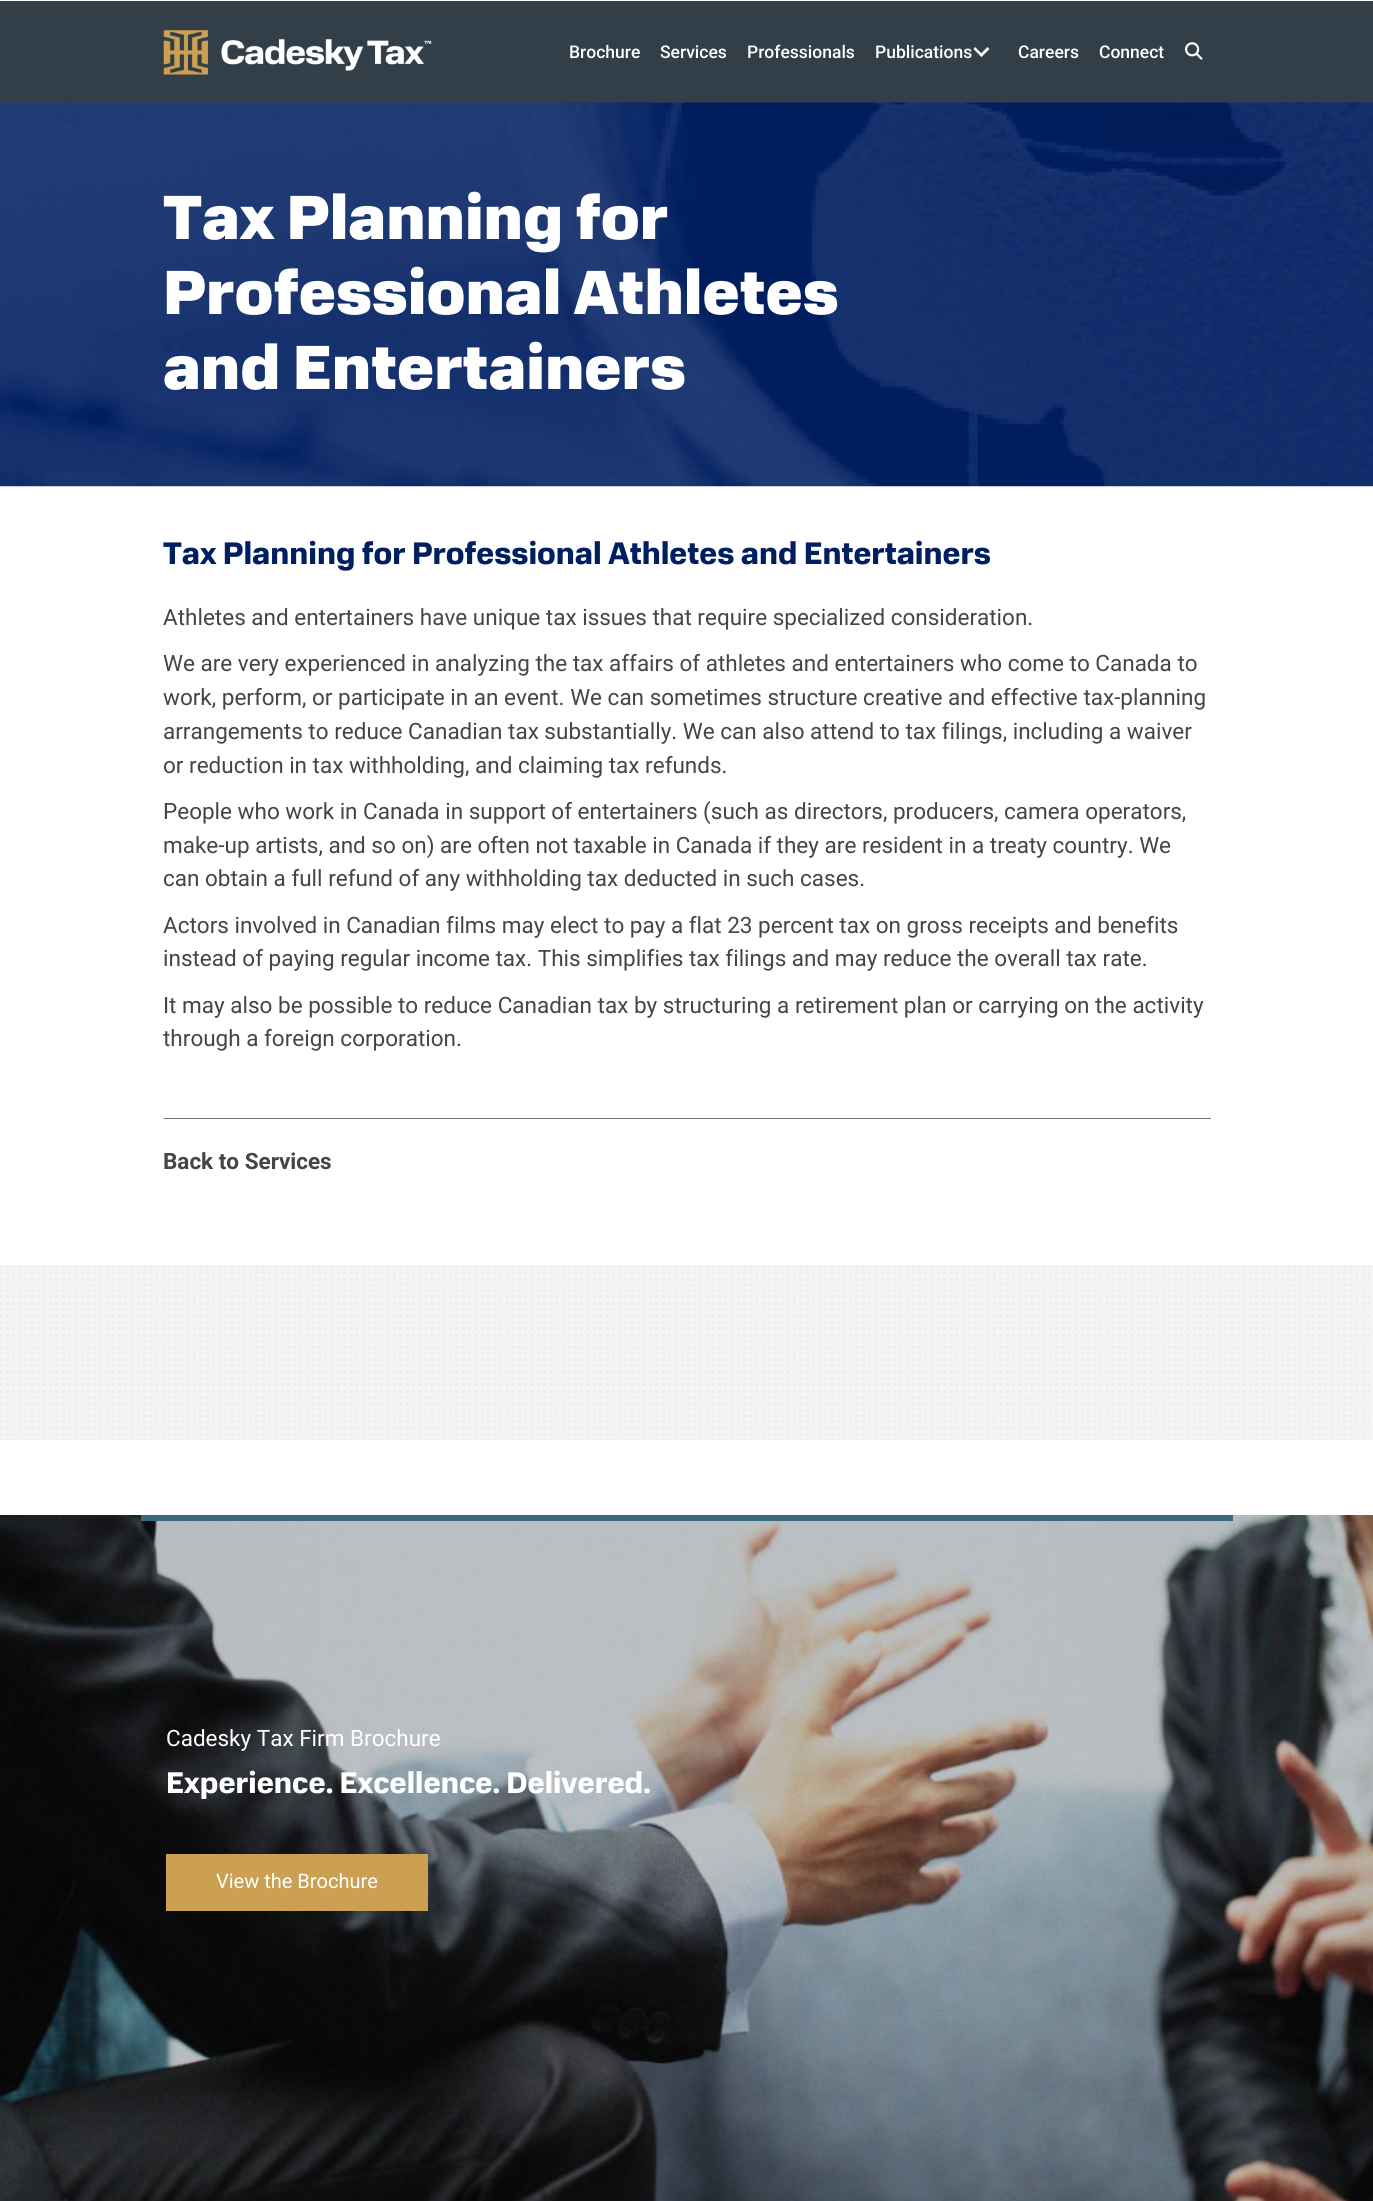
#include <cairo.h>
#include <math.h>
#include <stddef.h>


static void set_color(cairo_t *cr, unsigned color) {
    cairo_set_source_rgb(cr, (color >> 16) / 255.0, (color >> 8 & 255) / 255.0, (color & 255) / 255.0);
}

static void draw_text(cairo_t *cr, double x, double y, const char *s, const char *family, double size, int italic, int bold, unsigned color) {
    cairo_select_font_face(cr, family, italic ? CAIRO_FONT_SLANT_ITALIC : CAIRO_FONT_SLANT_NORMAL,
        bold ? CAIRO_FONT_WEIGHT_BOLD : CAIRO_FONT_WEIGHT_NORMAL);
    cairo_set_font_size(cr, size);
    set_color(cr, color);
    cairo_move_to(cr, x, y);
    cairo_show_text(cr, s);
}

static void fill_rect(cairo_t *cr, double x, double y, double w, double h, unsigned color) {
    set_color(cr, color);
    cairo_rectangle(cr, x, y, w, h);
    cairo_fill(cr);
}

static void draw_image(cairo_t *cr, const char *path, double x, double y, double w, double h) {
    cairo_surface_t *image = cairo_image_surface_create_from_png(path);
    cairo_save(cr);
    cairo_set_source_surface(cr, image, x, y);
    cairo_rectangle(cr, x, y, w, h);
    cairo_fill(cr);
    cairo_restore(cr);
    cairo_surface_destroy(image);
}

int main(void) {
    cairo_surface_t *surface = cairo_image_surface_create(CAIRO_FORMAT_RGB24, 1373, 2201);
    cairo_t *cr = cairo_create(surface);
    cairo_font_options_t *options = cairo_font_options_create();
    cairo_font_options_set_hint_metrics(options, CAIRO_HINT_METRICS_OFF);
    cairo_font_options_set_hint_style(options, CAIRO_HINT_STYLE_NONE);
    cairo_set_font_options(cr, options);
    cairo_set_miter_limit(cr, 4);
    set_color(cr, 0xFFFFFF);
    cairo_paint(cr);
    fill_rect(cr, 0, 1, 1373, 102, 0x333F48);
    draw_image(cr, "assets/img1.png", 163, 30, 269, 45);
    draw_text(cr, 569, 58, "Brochure", "Roboto Medium", 17.5, 0, 0, 0xFFFFFF);
    draw_text(cr, 660, 58, "Services", "Roboto Medium", 17.5, 0, 0, 0xFFFFFF);
    draw_text(cr, 747, 58, "Professionals", "Roboto Medium", 17.5, 0, 0, 0xFFFFFF);
    draw_text(cr, 875, 58, "Publications", "Roboto Medium", 17.5, 0, 0, 0xFFFFFF);
    cairo_new_path(cr);
    cairo_move_to(cr, 987.5, 47);
    cairo_line_to(cr, 989.5, 49);
    cairo_line_to(cr, 981.5, 57);
    cairo_line_to(cr, 979.5, 55);
    cairo_close_path(cr);
    cairo_fill(cr);
    cairo_new_path(cr);
    cairo_move_to(cr, 975, 47);
    cairo_line_to(cr, 983, 55);
    cairo_line_to(cr, 981.5, 57);
    cairo_line_to(cr, 973.5, 49);
    cairo_close_path(cr);
    cairo_fill(cr);
    draw_text(cr, 1018, 58, "Careers", "Roboto Medium", 17.5, 0, 0, 0xFFFFFF);
    draw_text(cr, 1099, 58, "Connect", "Roboto Medium", 17.5, 0, 0, 0xFFFFFF);
    draw_image(cr, "assets/img2.png", 1185, 42, 18, 18);
    draw_image(cr, "assets/img3.png", 0, 102, 1373, 385);
    draw_text(cr, 163, 239, "Tax Planning for", "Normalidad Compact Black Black", 62.5, 0, 0, 0xFFFFFF);
    draw_text(cr, 163, 314, "Professional Athletes", "Normalidad Compact Black Black", 62.5, 0, 0, 0xFFFFFF);
    draw_text(cr, 163, 389, "and Entertainers", "Normalidad Compact Black Black", 62.5, 0, 0, 0xFFFFFF);
    draw_text(cr, 163, 564, "Tax Planning for Professional Athletes and Entertainers", "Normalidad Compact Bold", 31.25, 0, 1, 0x001E60);
    draw_text(cr, 163, 625, "Athletes and entertainers have unique tax issues that require specialized consideration.", "Roboto", 22.5, 0, 0, 0x454545);
    draw_text(cr, 163, 671, "We are very experienced in analyzing the tax affairs of athletes and entertainers who come to Canada to", "Roboto", 22.5, 0, 0, 0x454545);
    draw_text(cr, 163, 705, "work, perform, or participate in an event. We can sometimes structure creative and effective tax-planning", "Roboto", 22.5, 0, 0, 0x454545);
    draw_text(cr, 163, 739, "arrangements to reduce Canadian tax substantially. We can also attend to tax filings, including a waiver", "Roboto", 22.5, 0, 0, 0x454545);
    draw_text(cr, 163, 773, "or reduction in tax withholding, and claiming tax refunds.", "Roboto", 22.5, 0, 0, 0x454545);
    draw_text(cr, 163, 819, "People who work in Canada in support of entertainers (such as directors, producers, camera operators,", "Roboto", 22.5, 0, 0, 0x454545);
    draw_text(cr, 163, 853, "make-up artists, and so on) are often not taxable in Canada if they are resident in a treaty country. We", "Roboto", 22.5, 0, 0, 0x454545);
    draw_text(cr, 163, 886, "can obtain a full refund of any withholding tax deducted in such cases.", "Roboto", 22.5, 0, 0, 0x454545);
    draw_text(cr, 163, 933, "Actors involved in Canadian films may elect to pay a flat 23 percent tax on gross receipts and benefits", "Roboto", 22.5, 0, 0, 0x454545);
    draw_text(cr, 163, 966, "instead of paying regular income tax. This simplifies tax filings and may reduce the overall tax rate.", "Roboto", 22.5, 0, 0, 0x454545);
    draw_text(cr, 163, 1013, "It may also be possible to reduce Canadian tax by structuring a retirement plan or carrying on the activity", "Roboto", 22.5, 0, 0, 0x454545);
    draw_text(cr, 163, 1046, "through a foreign corporation.", "Roboto", 22.5, 0, 0, 0x454545);
    fill_rect(cr, 164, 1118, 1047, 1, 0x707070);
    draw_text(cr, 163, 1169, "Back to Services", "Roboto", 22.5, 0, 1, 0x454545);
    fill_rect(cr, 1371, 1265, 2, 175, 0xF5F6F7);
    draw_image(cr, "assets/img4.png", 0, 1265, 1371, 175);
    draw_image(cr, "assets/img5.png", 0, 1515, 1373, 686);
    fill_rect(cr, 141, 1515, 1092, 6, 0x396982);
    draw_text(cr, 166, 1746, "Cadesky Tax Firm Brochure", "Roboto", 22.5, 0, 0, 0xFFFFFF);
    draw_text(cr, 166, 1793, "Experience. Excellence. Delivered.", "Normalidad Compact Bold", 30, 0, 1, 0xFFFFFF);
    fill_rect(cr, 166, 1854, 262, 57, 0xCBA052);
    draw_text(cr, 216, 1888, "View the Brochure", "Roboto", 20, 0, 0, 0xFFFFFF);
    cairo_surface_write_to_png(surface, "output.png");
    cairo_font_options_destroy(options);
    cairo_destroy(cr);
    cairo_surface_destroy(surface);
    return 0;
}
